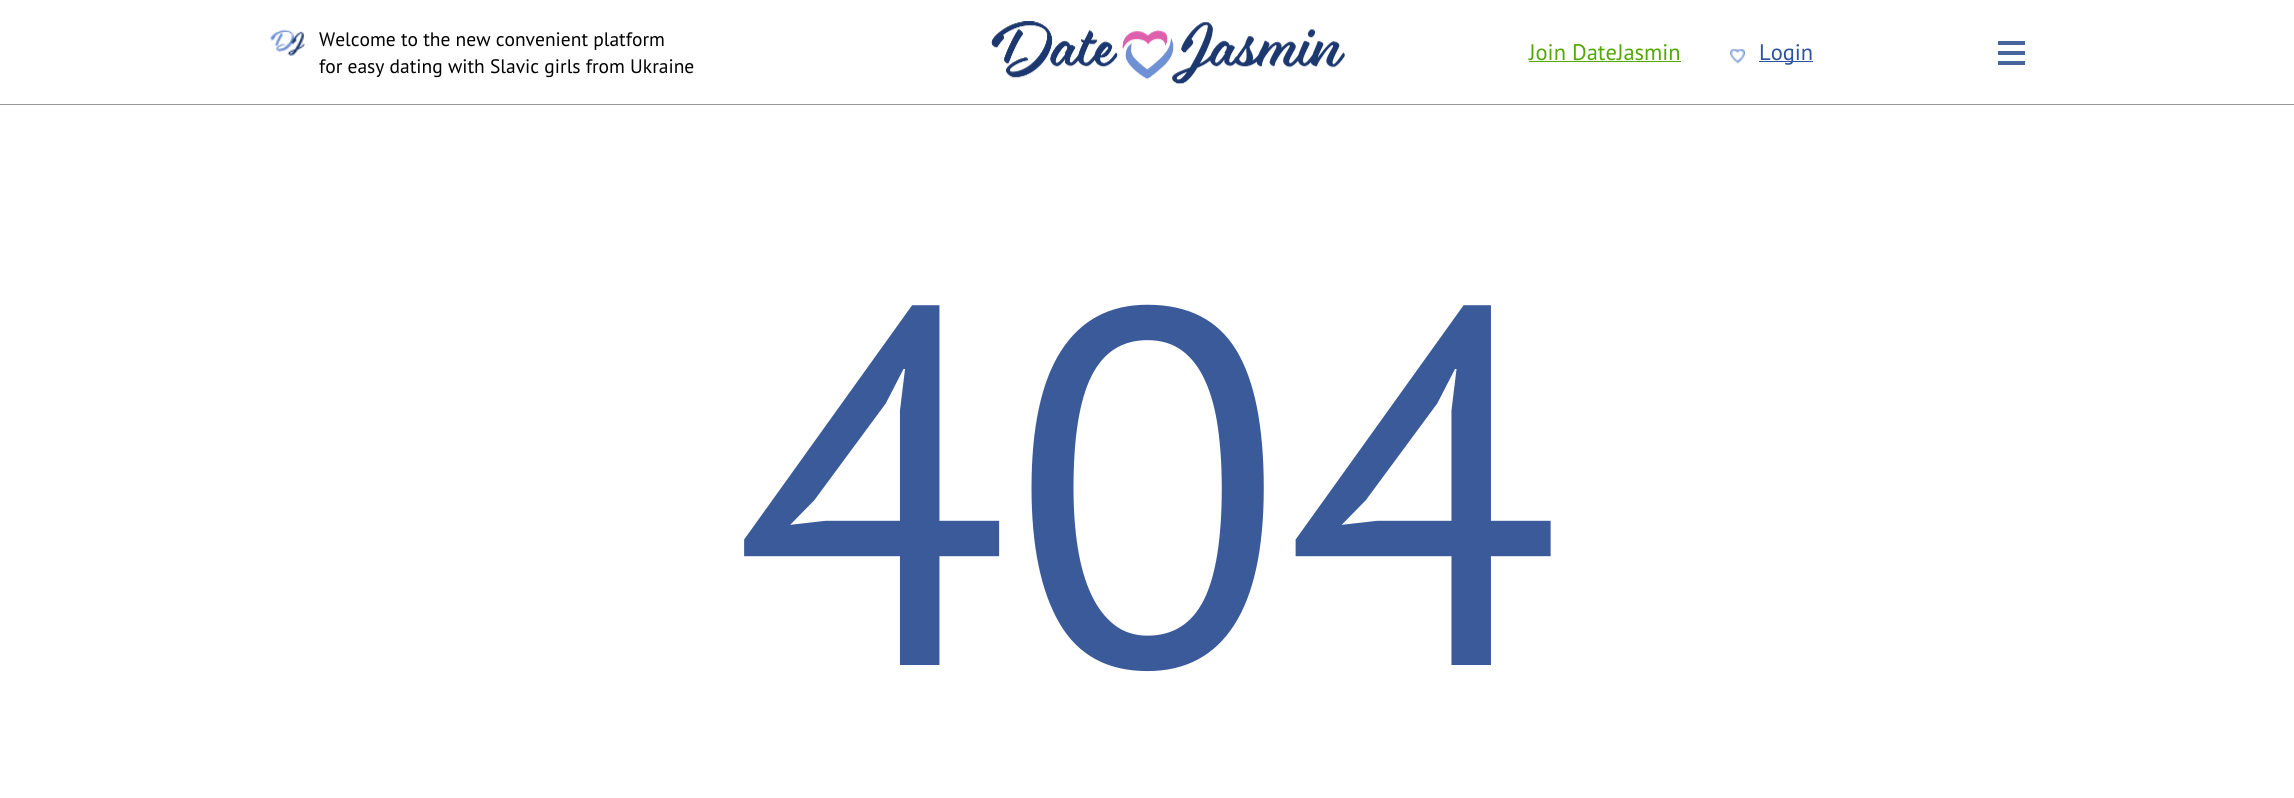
#include <cairo.h>
#include <math.h>
#include <stddef.h>


static void set_color(cairo_t *cr, unsigned color) {
    cairo_set_source_rgb(cr, (color >> 16) / 255.0, (color >> 8 & 255) / 255.0, (color & 255) / 255.0);
}

static void draw_text(cairo_t *cr, double x, double y, const char *s, const char *family, double size, int italic, int bold, unsigned color) {
    cairo_select_font_face(cr, family, italic ? CAIRO_FONT_SLANT_ITALIC : CAIRO_FONT_SLANT_NORMAL,
        bold ? CAIRO_FONT_WEIGHT_BOLD : CAIRO_FONT_WEIGHT_NORMAL);
    cairo_set_font_size(cr, size);
    set_color(cr, color);
    cairo_move_to(cr, x, y);
    cairo_show_text(cr, s);
}

static void fill_rect(cairo_t *cr, double x, double y, double w, double h, unsigned color) {
    set_color(cr, color);
    cairo_rectangle(cr, x, y, w, h);
    cairo_fill(cr);
}

static void draw_image(cairo_t *cr, const char *path, double x, double y, double w, double h) {
    cairo_surface_t *image = cairo_image_surface_create_from_png(path);
    cairo_save(cr);
    cairo_set_source_surface(cr, image, x, y);
    cairo_rectangle(cr, x, y, w, h);
    cairo_fill(cr);
    cairo_restore(cr);
    cairo_surface_destroy(image);
}

int main(void) {
    cairo_surface_t *surface = cairo_image_surface_create(CAIRO_FORMAT_RGB24, 2294, 798);
    cairo_t *cr = cairo_create(surface);
    cairo_font_options_t *options = cairo_font_options_create();
    cairo_font_options_set_hint_metrics(options, CAIRO_HINT_METRICS_OFF);
    cairo_font_options_set_hint_style(options, CAIRO_HINT_STYLE_NONE);
    cairo_set_font_options(cr, options);
    cairo_set_miter_limit(cr, 4);
    set_color(cr, 0xFFFFFF);
    cairo_paint(cr);
    fill_rect(cr, 0, 104, 2294, 1, 0x979797);
    draw_image(cr, "assets/img1.png", 270, 29, 35, 27);
    draw_text(cr, 319, 46, "Welcome to the new convenient platform", "PT Sans", 19.5, 0, 0, 0x000000);
    draw_text(cr, 319, 73, "for easy dating with Slavic girls from Ukraine", "PT Sans", 19.5, 0, 0, 0x000000);
    draw_image(cr, "assets/img2.png", 991, 21, 354, 63);
    draw_text(cr, 1529, 60, "Join DateJasmin", "PT Sans", 22.5, 0, 0, 0x53A807);
    fill_rect(cr, 1529, 61, 152, 1, 0x53A807);
    draw_image(cr, "assets/img3.png", 1730, 49, 15, 15);
    fill_rect(cr, 1759, 61, 54, 1, 0x2A52A1);
    draw_text(cr, 1759, 60, "Login", "PT Sans", 22.5, 0, 0, 0x2A52A1);
    fill_rect(cr, 1998, 41, 27, 4, 0x47649C);
    fill_rect(cr, 1998, 51, 27, 4, 0x47649C);
    fill_rect(cr, 1998, 61, 27, 4, 0x47649C);
    draw_text(cr, 734, 665, "404", "PT Sans", 506, 0, 0, 0x3B5A9A);
    cairo_surface_write_to_png(surface, "output.png");
    cairo_font_options_destroy(options);
    cairo_destroy(cr);
    cairo_surface_destroy(surface);
    return 0;
}
